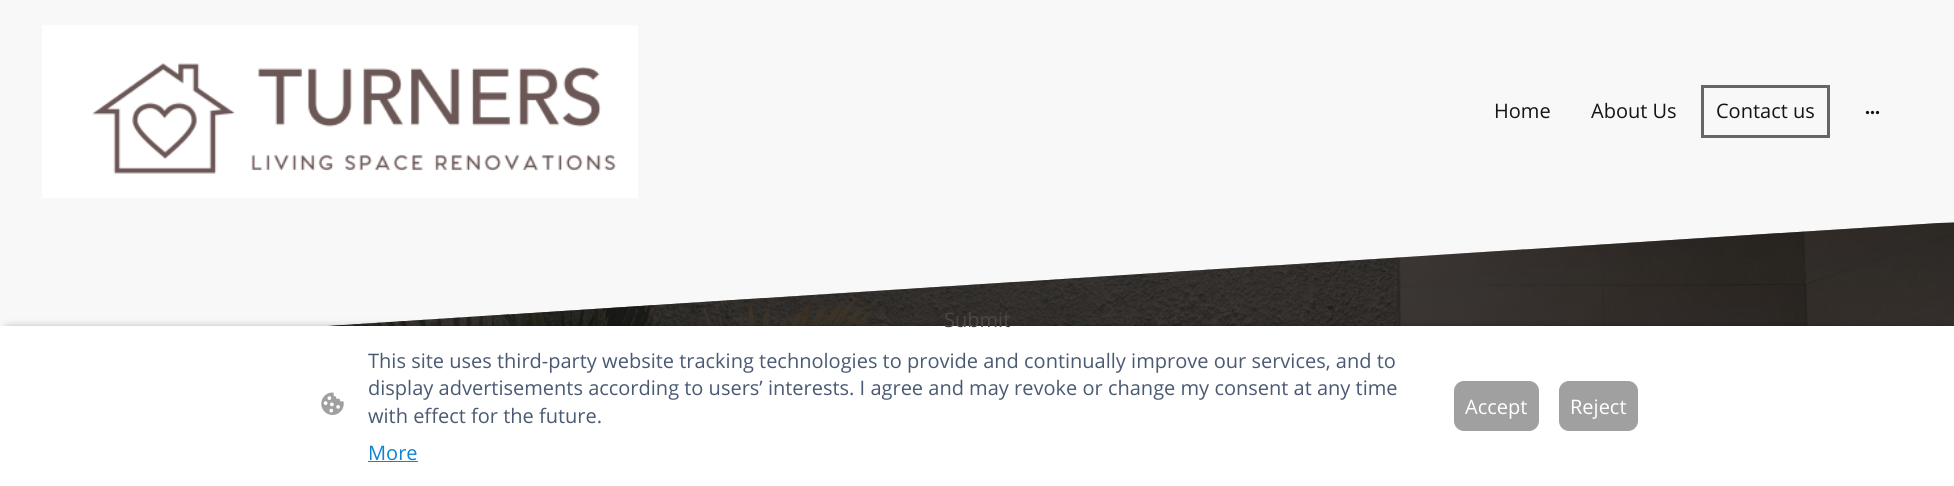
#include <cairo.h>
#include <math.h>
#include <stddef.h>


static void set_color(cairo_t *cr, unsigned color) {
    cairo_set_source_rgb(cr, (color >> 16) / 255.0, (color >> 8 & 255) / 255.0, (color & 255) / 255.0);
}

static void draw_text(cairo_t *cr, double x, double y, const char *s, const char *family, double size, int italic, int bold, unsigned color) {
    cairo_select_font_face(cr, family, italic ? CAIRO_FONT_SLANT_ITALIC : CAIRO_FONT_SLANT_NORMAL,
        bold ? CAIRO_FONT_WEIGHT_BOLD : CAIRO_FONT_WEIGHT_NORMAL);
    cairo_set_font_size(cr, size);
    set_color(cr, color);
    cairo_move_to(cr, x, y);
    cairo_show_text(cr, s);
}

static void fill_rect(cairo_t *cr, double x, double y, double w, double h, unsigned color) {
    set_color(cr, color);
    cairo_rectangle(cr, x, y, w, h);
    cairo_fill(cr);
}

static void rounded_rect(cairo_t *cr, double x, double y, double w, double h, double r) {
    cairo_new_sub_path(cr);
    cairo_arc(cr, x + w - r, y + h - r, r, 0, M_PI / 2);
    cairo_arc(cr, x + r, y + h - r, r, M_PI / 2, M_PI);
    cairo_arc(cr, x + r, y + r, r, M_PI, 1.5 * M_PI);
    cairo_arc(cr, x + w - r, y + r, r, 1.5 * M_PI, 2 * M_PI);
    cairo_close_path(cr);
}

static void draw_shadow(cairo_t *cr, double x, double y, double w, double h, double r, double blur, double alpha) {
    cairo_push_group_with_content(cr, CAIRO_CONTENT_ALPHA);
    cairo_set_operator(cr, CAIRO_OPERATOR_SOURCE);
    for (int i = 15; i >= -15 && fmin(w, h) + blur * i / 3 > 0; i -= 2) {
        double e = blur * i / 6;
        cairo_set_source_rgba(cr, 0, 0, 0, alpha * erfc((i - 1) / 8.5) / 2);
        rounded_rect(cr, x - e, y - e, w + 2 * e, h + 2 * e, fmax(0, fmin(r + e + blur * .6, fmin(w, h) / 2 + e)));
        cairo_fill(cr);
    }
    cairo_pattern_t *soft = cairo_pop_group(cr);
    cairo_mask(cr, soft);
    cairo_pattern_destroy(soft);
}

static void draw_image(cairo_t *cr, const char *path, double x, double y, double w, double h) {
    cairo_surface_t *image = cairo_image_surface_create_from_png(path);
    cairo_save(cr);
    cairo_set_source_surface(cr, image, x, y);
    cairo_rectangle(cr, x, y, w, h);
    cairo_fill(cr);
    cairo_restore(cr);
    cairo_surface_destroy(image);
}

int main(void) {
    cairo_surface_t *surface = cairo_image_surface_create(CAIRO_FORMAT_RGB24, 1954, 486);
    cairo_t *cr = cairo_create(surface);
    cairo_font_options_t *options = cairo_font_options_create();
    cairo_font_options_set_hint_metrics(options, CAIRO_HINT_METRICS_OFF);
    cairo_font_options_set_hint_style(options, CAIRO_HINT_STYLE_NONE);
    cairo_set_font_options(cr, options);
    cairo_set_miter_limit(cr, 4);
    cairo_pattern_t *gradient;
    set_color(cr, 0xF8F8F8);
    cairo_paint(cr);
    draw_image(cr, "assets/img1.png", 42, 25, 596, 173);
    draw_text(cr, 1494, 118, "Home", "Open Sans", 20, 0, 0, 0x151515);
    draw_text(cr, 1591, 118, "About Us", "Open Sans", 20, 0, 0, 0x151515);
    cairo_rectangle(cr, 1702.5, 86.5, 126, 50);
    set_color(cr, 0x666666);
    cairo_set_line_width(cr, 3);
    cairo_stroke(cr);
    draw_text(cr, 1716, 118, "Contact us", "Open Sans", 20, 0, 0, 0x151515);
    draw_image(cr, "assets/img2.png", 1865, 110, 15, 5);
    draw_image(cr, "assets/img3.png", 328, 222, 1626, 104);
    gradient = cairo_pattern_create_linear(978, 222, 978, 410);
    cairo_pattern_add_color_stop_rgba(gradient, 0, 0, 0, 0, 0.07);
    cairo_pattern_add_color_stop_rgba(gradient, 1, 0, 0, 0, 0);
    cairo_set_source(cr, gradient);
    cairo_pattern_destroy(gradient);
    cairo_new_path(cr);
    cairo_move_to(cr, 0, 347);
    cairo_line_to(cr, 0, 410);
    cairo_line_to(cr, 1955, 410);
    cairo_line_to(cr, 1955, 223);
    cairo_line_to(cr, 1938, 223);
    cairo_close_path(cr);
    cairo_fill(cr);
    set_color(cr, 0x000000);
    draw_shadow(cr, 8, 330, 1940, 145, 0, 5, 0.63);
    fill_rect(cr, 0, 326, 1954, 160, 0xFFFFFF);
    draw_text(cr, 944, 327, "Submit", "Open Sans", 20, 0, 0, 0x4B4846);
    draw_image(cr, "assets/img4.png", 321, 392, 23, 23);
    draw_text(cr, 368, 368, "This site uses third-party website tracking technologies to provide and continually improve our services, and to", "Open Sans", 20, 0, 0, 0x4A5A73);
    draw_text(cr, 368, 395, "display advertisements according to users’ interests. I agree and may revoke or change my consent at any time", "Open Sans", 20, 0, 0, 0x4A5A73);
    draw_text(cr, 368, 423, "with effect for the future.", "Open Sans", 20, 0, 0, 0x4A5A73);
    draw_text(cr, 368, 460, "More", "Open Sans", 20, 0, 0, 0x1183D1);
    fill_rect(cr, 368, 461, 50, 1, 0x1183D1);
    set_color(cr, 0xA0A0A0);
    rounded_rect(cr, 1454.5, 381.5, 84, 49, 9.5);
    cairo_fill_preserve(cr);
    cairo_set_line_width(cr, 1);
    cairo_stroke(cr);
    draw_text(cr, 1465, 414, "Accept", "Open Sans", 20, 0, 0, 0xFFFFFF);
    set_color(cr, 0xA0A0A0);
    rounded_rect(cr, 1559.5, 381.5, 78, 49, 9.5);
    cairo_fill_preserve(cr);
    cairo_stroke(cr);
    draw_text(cr, 1570, 414, "Reject", "Open Sans", 20, 0, 0, 0xFFFFFF);
    cairo_surface_write_to_png(surface, "output.png");
    cairo_font_options_destroy(options);
    cairo_destroy(cr);
    cairo_surface_destroy(surface);
    return 0;
}
